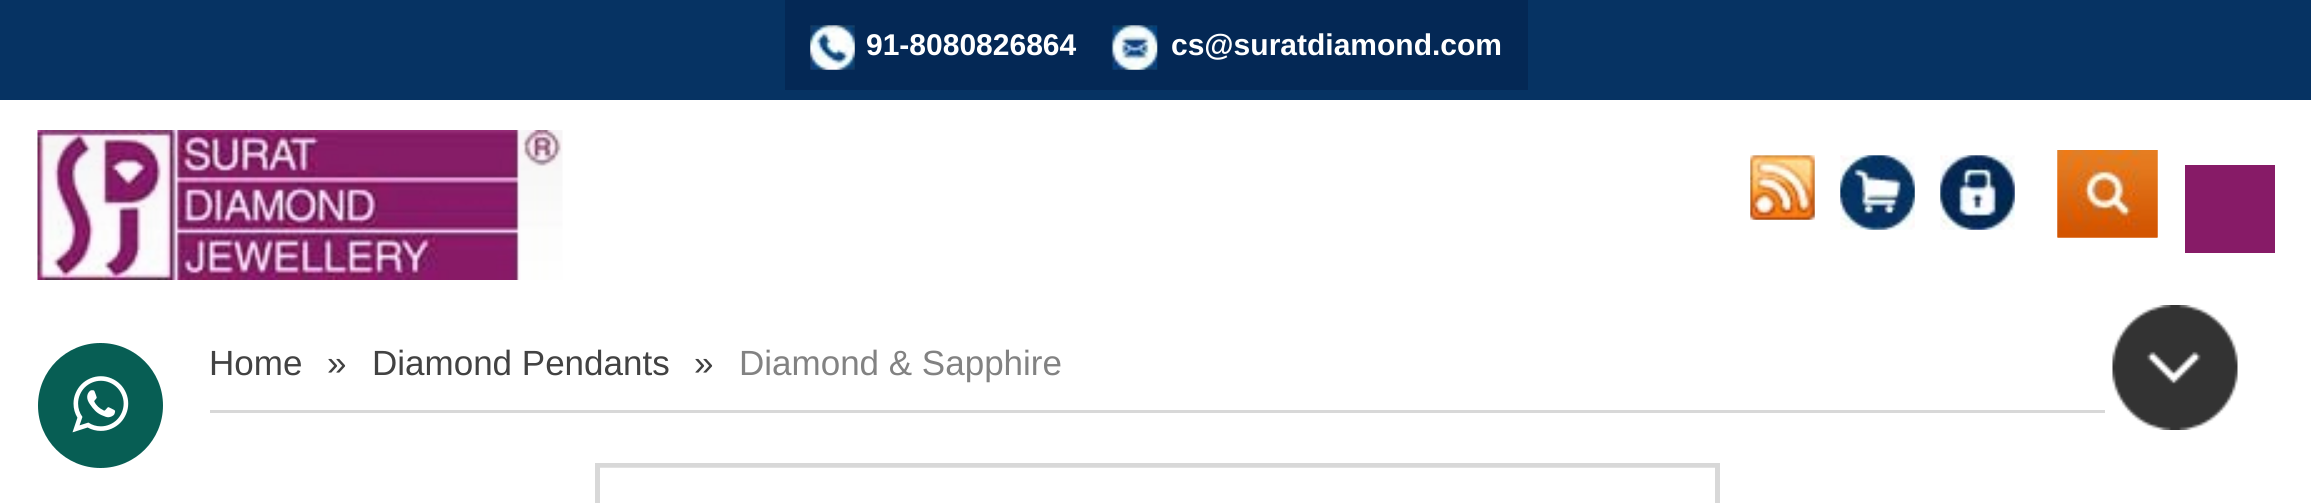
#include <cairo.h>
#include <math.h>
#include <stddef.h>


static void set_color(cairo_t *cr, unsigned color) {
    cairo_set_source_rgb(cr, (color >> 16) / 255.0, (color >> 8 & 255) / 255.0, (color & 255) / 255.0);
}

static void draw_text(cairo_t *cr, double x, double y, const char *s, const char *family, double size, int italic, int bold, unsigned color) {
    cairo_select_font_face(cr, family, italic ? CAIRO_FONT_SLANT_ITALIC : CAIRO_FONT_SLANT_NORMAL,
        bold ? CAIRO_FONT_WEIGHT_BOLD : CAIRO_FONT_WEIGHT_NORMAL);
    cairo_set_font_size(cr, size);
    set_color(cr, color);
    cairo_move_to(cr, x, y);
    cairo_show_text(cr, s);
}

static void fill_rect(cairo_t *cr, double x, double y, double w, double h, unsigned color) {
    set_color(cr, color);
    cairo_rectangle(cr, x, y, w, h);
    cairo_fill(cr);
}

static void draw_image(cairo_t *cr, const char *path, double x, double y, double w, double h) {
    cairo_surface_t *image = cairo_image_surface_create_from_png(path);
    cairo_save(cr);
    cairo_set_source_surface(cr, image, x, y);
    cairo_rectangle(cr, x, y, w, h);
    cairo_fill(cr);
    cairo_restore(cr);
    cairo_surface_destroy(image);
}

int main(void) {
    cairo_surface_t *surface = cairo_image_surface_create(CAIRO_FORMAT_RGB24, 2311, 503);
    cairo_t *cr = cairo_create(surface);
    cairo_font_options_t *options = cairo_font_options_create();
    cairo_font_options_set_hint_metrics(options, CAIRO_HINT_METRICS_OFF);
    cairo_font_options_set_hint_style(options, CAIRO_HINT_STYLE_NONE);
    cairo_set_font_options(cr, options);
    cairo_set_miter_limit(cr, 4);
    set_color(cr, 0xFFFFFF);
    cairo_paint(cr);
    fill_rect(cr, 0, 0, 2311, 100, 0x063363);
    fill_rect(cr, 785, 0, 743, 90, 0x042855);
    draw_image(cr, "assets/img1.png", 810, 25, 45, 45);
    draw_text(cr, 866, 55, "91-8080826864", "Liberation Sans", 30, 0, 1, 0xFFFFFF);
    draw_image(cr, "assets/img2.png", 1111, 25, 47, 45);
    draw_text(cr, 1171, 55, "cs@suratdiamond.com", "Liberation Sans", 30, 0, 1, 0xFFFFFF);
    draw_image(cr, "assets/img3.png", 37, 130, 526, 150);
    draw_image(cr, "assets/img4.png", 1750, 155, 65, 65);
    draw_image(cr, "assets/img5.png", 1840, 155, 75, 75);
    draw_image(cr, "assets/img6.png", 1940, 155, 75, 75);
    draw_image(cr, "assets/img7.png", 2057, 150, 101, 88);
    draw_image(cr, "assets/img8.png", 2057, 150, 101, 88);
    fill_rect(cr, 2185, 165, 90, 88, 0x871B67);
    set_color(cr, 0x075E54);
    cairo_arc(cr, 100.5, 405.5, 62.5, 0, 2 * M_PI);
    cairo_fill(cr);
    draw_image(cr, "assets/img9.png", 72, 376, 57, 57);
    fill_rect(cr, 210, 410, 1895, 3, 0xD8D8D8);
    draw_text(cr, 209, 375, "Home", "Liberation Sans", 35, 0, 0, 0x424242);
    draw_text(cr, 327, 375, "»", "Liberation Sans", 35, 0, 0, 0x424242);
    draw_text(cr, 372, 375, "Diamond Pendants", "Liberation Sans", 35, 0, 0, 0x424242);
    draw_text(cr, 694, 375, "»", "Liberation Sans", 35, 0, 0, 0x424242);
    draw_text(cr, 739, 375, "Diamond & Sapphire", "Liberation Sans", 35, 0, 0, 0x828282);
    cairo_rectangle(cr, 597.5, 465.5, 1120, 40);
    set_color(cr, 0xD8D8D8);
    cairo_set_line_width(cr, 5);
    cairo_stroke(cr);
    fill_rect(cr, 600, 467, 1115, 1, 0xE2E2E2);
    draw_image(cr, "assets/img10.png", 2112, 305, 126, 125);
    cairo_surface_write_to_png(surface, "output.png");
    cairo_font_options_destroy(options);
    cairo_destroy(cr);
    cairo_surface_destroy(surface);
    return 0;
}
